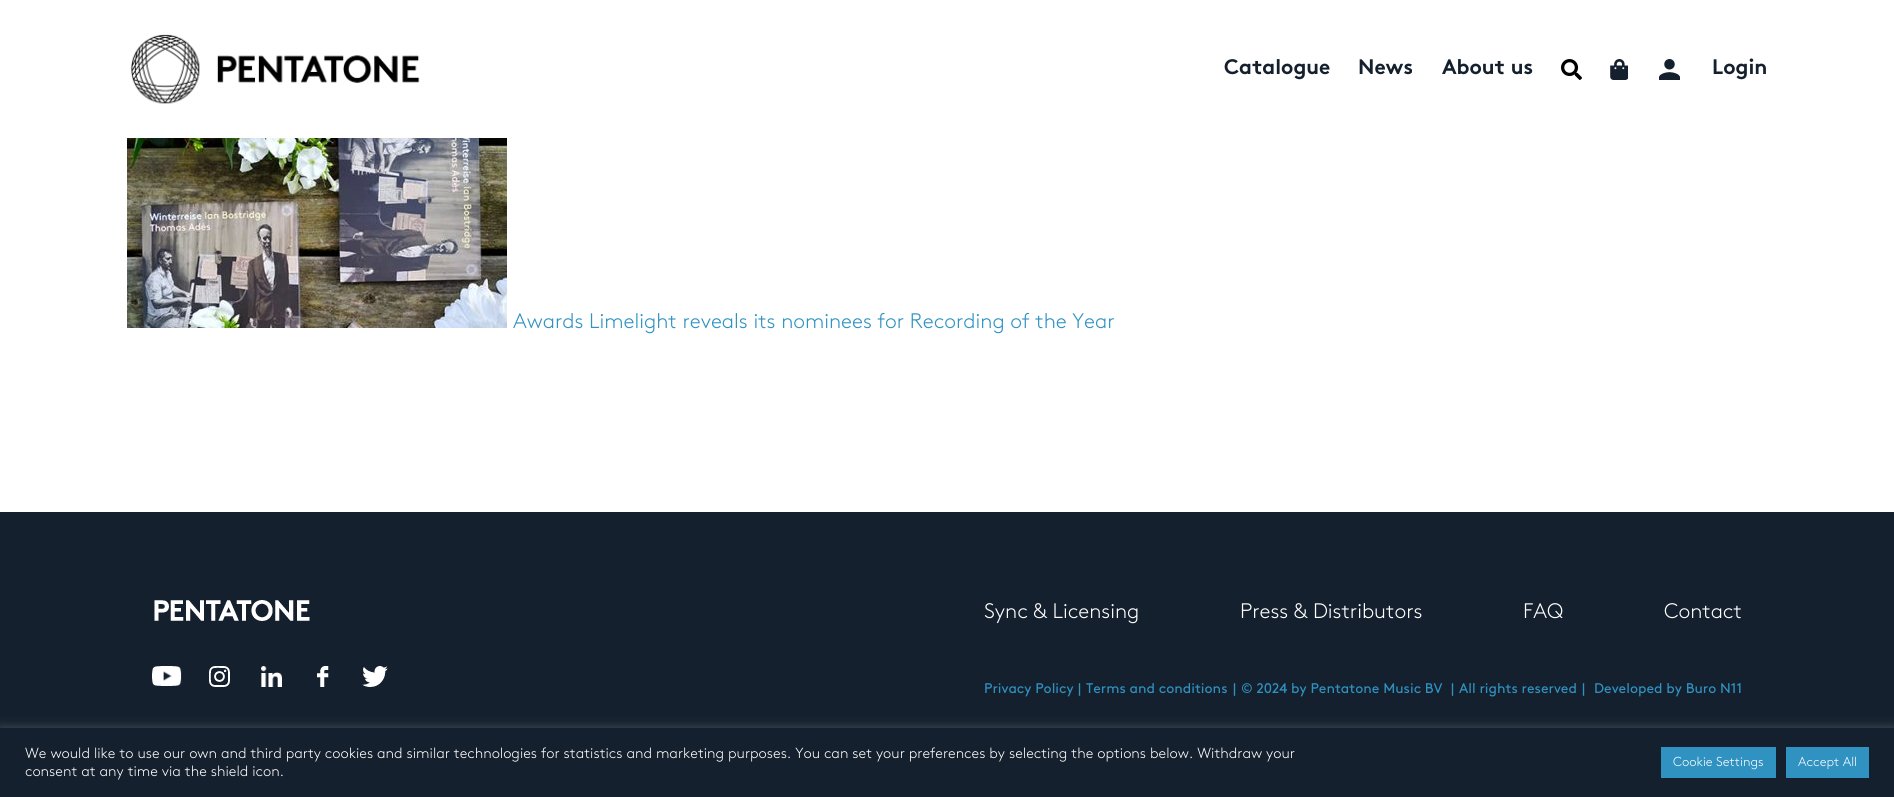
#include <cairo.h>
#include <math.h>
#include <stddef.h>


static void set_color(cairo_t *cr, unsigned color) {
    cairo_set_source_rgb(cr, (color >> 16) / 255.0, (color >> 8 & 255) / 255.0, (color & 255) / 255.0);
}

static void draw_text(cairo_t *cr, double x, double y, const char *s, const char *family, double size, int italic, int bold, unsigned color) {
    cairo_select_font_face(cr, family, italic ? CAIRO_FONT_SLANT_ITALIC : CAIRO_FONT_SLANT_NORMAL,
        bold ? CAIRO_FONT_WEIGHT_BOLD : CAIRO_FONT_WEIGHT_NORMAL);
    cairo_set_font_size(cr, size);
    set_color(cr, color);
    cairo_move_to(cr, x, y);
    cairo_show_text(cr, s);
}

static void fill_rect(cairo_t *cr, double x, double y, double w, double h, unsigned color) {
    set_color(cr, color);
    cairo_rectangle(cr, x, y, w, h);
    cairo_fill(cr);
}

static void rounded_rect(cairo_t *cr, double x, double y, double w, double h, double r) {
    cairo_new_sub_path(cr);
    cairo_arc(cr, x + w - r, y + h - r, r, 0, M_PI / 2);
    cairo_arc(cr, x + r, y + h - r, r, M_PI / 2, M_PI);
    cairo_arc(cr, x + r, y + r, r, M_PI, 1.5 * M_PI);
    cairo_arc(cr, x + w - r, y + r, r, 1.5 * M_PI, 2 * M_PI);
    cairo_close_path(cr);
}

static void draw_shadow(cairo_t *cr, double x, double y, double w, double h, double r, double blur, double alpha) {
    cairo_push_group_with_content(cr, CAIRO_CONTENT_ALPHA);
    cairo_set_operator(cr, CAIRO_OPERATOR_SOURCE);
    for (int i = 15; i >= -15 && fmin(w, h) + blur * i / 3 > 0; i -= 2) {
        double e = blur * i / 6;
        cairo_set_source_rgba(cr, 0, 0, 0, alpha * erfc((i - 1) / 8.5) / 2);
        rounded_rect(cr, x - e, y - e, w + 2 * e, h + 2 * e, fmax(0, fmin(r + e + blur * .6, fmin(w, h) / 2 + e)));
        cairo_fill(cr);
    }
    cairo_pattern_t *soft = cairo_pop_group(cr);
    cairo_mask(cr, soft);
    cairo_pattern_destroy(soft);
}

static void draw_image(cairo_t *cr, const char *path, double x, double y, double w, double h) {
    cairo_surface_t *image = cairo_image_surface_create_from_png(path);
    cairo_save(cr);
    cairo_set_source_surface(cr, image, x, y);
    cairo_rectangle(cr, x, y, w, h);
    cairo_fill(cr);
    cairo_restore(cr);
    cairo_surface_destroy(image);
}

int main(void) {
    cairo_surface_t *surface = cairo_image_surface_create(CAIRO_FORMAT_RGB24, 1894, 797);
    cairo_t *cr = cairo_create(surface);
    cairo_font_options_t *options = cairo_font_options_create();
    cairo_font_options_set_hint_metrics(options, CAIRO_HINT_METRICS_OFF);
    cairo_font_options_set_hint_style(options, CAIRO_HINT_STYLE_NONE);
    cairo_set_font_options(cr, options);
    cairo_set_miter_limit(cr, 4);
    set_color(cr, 0xFFFFFF);
    cairo_paint(cr);
    draw_image(cr, "assets/img1.png", 130, 34, 290, 70);
    draw_text(cr, 1224, 74, "Catalogue", "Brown", 21, 0, 1, 0x15202E);
    draw_text(cr, 1358, 74, "News", "Brown", 21, 0, 1, 0x15202E);
    draw_text(cr, 1442, 74, "About us", "Brown", 21, 0, 1, 0x15202E);
    draw_image(cr, "assets/img2.png", 1561, 59, 21, 21);
    draw_image(cr, "assets/img3.png", 1610, 59, 18, 21);
    draw_image(cr, "assets/img4.png", 1659, 59, 21, 21);
    draw_text(cr, 1712, 74, "Login", "Brown", 21, 0, 1, 0x15202E);
    draw_image(cr, "assets/img5.png", 127, 138, 380, 190);
    draw_text(cr, 513, 328, "Awards Limelight reveals its nominees for Recording of the Year", "Brown Light", 21, 0, 0, 0x2F92C1);
    fill_rect(cr, 0, 512, 1894, 216, 0x15202E);
    draw_image(cr, "assets/img6.png", 154, 600, 156, 21);
    draw_image(cr, "assets/img7.png", 152, 666, 30, 20);
    draw_image(cr, "assets/img8.png", 209, 666, 21, 21);
    draw_image(cr, "assets/img9.png", 261, 666, 21, 21);
    draw_image(cr, "assets/img10.png", 317, 666, 12, 21);
    draw_image(cr, "assets/img11.png", 362, 666, 26, 21);
    draw_text(cr, 984, 618, "Sync & Licensing", "Brown Light", 21, 0, 0, 0xFFFFFF);
    draw_text(cr, 1240, 618, "Press & Distributors", "Brown Light", 21, 0, 0, 0xFFFFFF);
    draw_text(cr, 1523, 618, "FAQ", "Brown Light", 21, 0, 0, 0xFFFFFF);
    draw_text(cr, 1664, 618, "Contact", "Brown Light", 21, 0, 0, 0xFFFFFF);
    draw_text(cr, 984, 693, "Privacy Policy", "Brown", 14, 0, 0, 0x2F92C1);
    draw_text(cr, 1078, 693, "|", "Brown", 14, 0, 0, 0x2F92C1);
    draw_text(cr, 1086, 693, "Terms and conditions", "Brown", 14, 0, 0, 0x2F92C1);
    draw_text(cr, 1233, 693, "|", "Brown", 14, 0, 0, 0x2F92C1);
    draw_text(cr, 1241, 693, "© 2024 by Pentatone Music BV", "Brown", 14, 0, 0, 0x2F92C1);
    draw_text(cr, 1451, 693, "|", "Brown", 14, 0, 0, 0x2F92C1);
    draw_text(cr, 1459, 693, "All rights reserved", "Brown", 14, 0, 0, 0x2F92C1);
    draw_text(cr, 1582, 693, "|", "Brown", 14, 0, 0, 0x2F92C1);
    draw_text(cr, 1594, 693, "Developed by Buro N11", "Brown", 14, 0, 0, 0x2F92C1);
    set_color(cr, 0xACABAB);
    draw_shadow(cr, 0, 727, 1894, 69, 0, 5, 0.3);
    fill_rect(cr, 0, 728, 1894, 69, 0x15202E);
    draw_text(cr, 25, 758, "We would like to use our own and third party cookies and similar technologies for statistics and marketing purposes. You can set your preferences by selecting the options below. Withdraw your", "Brown Light", 14.67, 0, 0, 0xFFFFFF);
    draw_text(cr, 25, 776, "consent at any time via the shield icon.", "Brown Light", 14.67, 0, 0, 0xFFFFFF);
    fill_rect(cr, 1661, 747, 115, 31, 0x2F92C1);
    draw_text(cr, 1673, 766, "Cookie Settings", "Brown Light", 13, 0, 0, 0xFFFFFF);
    fill_rect(cr, 1786, 747, 83, 31, 0x2F92C1);
    draw_text(cr, 1798, 766, "Accept All", "Brown Light", 13, 0, 0, 0xFFFFFF);
    cairo_surface_write_to_png(surface, "output.png");
    cairo_font_options_destroy(options);
    cairo_destroy(cr);
    cairo_surface_destroy(surface);
    return 0;
}
